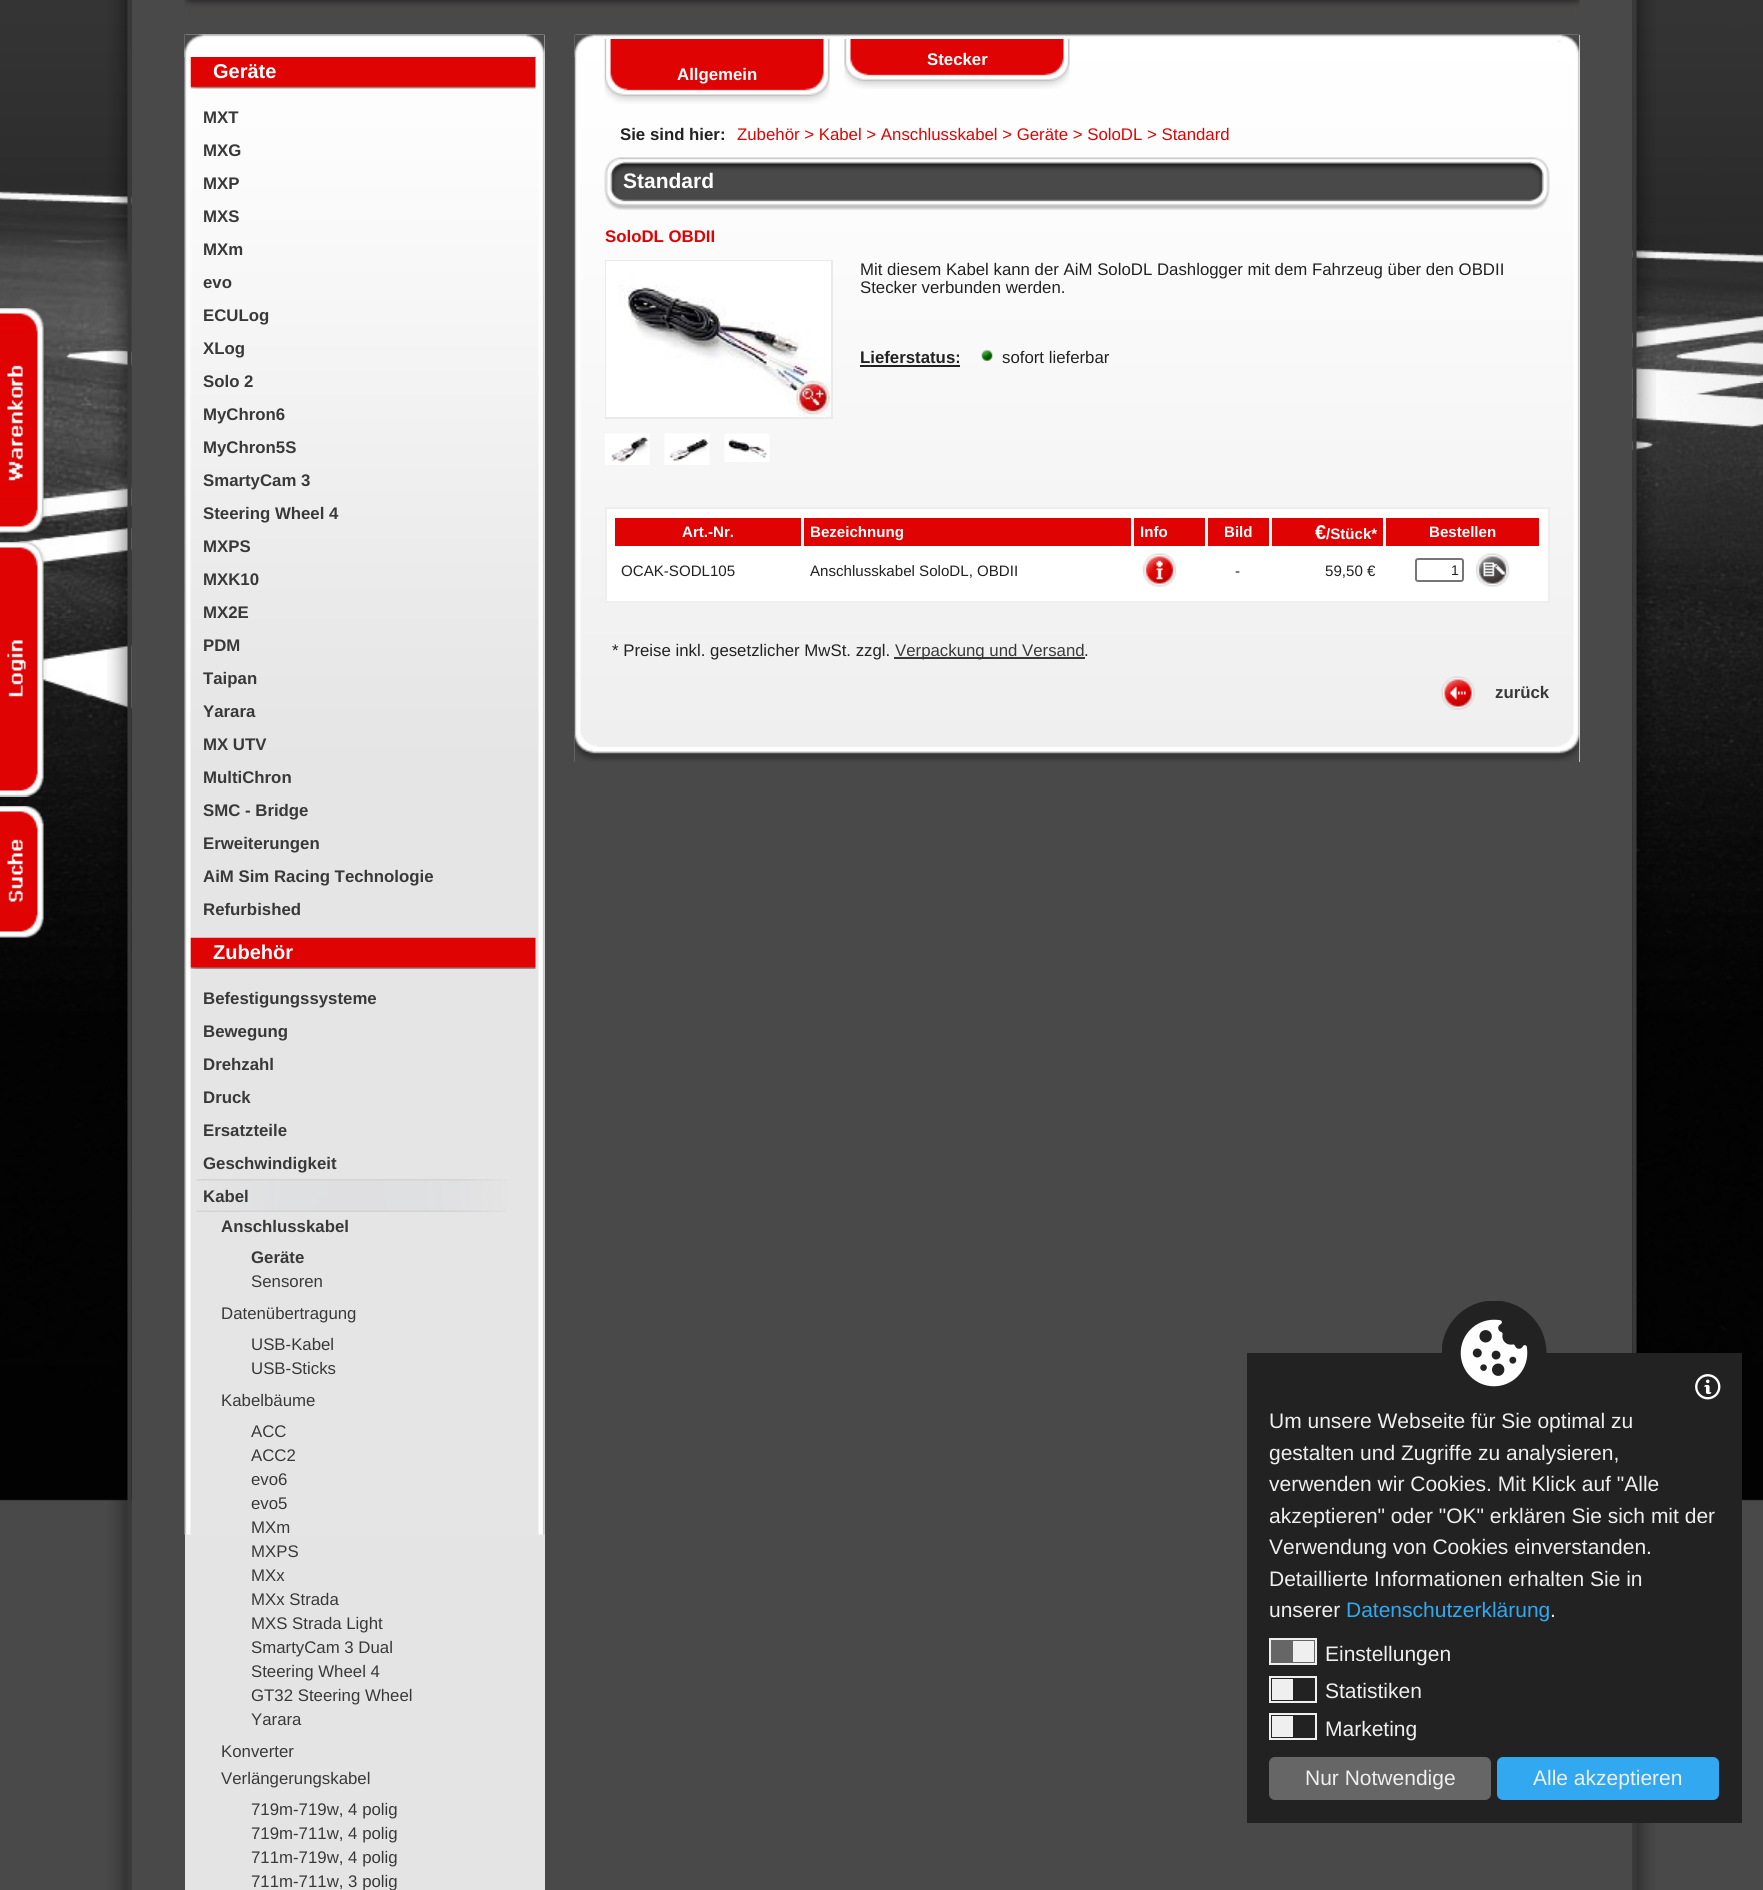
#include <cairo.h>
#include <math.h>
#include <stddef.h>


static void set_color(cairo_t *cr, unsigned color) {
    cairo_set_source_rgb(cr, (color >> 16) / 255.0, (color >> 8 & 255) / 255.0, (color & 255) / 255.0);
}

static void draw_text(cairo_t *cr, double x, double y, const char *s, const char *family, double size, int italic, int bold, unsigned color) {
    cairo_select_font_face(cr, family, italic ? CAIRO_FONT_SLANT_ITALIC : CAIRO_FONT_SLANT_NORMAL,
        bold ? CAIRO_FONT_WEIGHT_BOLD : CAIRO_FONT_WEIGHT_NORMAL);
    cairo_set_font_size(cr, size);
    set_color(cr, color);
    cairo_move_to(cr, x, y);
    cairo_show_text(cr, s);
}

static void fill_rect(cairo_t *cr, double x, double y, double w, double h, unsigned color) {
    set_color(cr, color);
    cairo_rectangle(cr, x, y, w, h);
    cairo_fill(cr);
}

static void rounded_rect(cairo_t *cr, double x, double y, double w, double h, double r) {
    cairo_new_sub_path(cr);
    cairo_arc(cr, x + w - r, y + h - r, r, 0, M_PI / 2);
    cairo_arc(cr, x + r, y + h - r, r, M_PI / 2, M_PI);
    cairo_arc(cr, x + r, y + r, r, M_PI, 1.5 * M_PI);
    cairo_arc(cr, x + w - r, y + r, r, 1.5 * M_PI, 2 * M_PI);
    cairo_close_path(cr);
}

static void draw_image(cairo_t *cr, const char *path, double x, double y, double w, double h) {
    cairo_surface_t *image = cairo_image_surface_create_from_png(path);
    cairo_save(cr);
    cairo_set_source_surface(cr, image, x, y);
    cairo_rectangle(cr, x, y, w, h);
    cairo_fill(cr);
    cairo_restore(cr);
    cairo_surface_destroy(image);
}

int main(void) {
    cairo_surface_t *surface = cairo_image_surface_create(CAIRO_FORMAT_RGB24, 1763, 1890);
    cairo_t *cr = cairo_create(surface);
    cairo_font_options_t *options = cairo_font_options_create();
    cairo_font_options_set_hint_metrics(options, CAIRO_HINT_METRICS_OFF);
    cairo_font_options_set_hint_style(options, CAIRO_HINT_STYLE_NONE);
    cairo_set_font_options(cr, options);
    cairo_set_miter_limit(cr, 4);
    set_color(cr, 0x494949);
    cairo_paint(cr);
    draw_image(cr, "assets/img1.png", 0, 0, 1763, 1501);
    draw_image(cr, "assets/img2.png", 0, 308, 47, 229);
    draw_image(cr, "assets/img3.png", 0, 542, 47, 255);
    draw_image(cr, "assets/img4.png", 0, 806, 44, 132);
    draw_image(cr, "assets/img5.png", 107, 0, 1549, 1890);
    fill_rect(cr, 132, 0, 1500, 1890, 0x494949);
    draw_image(cr, "assets/img6.png", 184, 0, 1396, 16);
    fill_rect(cr, 185, 35, 360, 1855, 0xE4E4E4);
    draw_image(cr, "assets/img7.png", 184, 34, 361, 1501);
    draw_image(cr, "assets/img8.png", 184, 34, 361, 23);
    draw_image(cr, "assets/img9.png", 190, 57, 346, 32);
    draw_text(cr, 213, 78, "Geräte", "Liberation Sans", 20, 0, 1, 0xFFFFFF);
    draw_text(cr, 203, 123, "MXT", "Liberation Sans", 16.8, 0, 1, 0x393939);
    draw_text(cr, 203, 156, "MXG", "Liberation Sans", 16.8, 0, 1, 0x393939);
    draw_text(cr, 203, 189, "MXP", "Liberation Sans", 16.8, 0, 1, 0x393939);
    draw_text(cr, 203, 222, "MXS", "Liberation Sans", 16.8, 0, 1, 0x393939);
    draw_text(cr, 203, 255, "MXm", "Liberation Sans", 16.8, 0, 1, 0x393939);
    draw_text(cr, 203, 288, "evo", "Liberation Sans", 16.8, 0, 1, 0x393939);
    draw_text(cr, 203, 321, "ECULog", "Liberation Sans", 16.8, 0, 1, 0x393939);
    draw_text(cr, 203, 354, "XLog", "Liberation Sans", 16.8, 0, 1, 0x393939);
    draw_text(cr, 203, 387, "Solo 2", "Liberation Sans", 16.8, 0, 1, 0x393939);
    draw_text(cr, 203, 420, "MyChron6", "Liberation Sans", 16.8, 0, 1, 0x393939);
    draw_text(cr, 203, 453, "MyChron5S", "Liberation Sans", 16.8, 0, 1, 0x393939);
    draw_text(cr, 203, 486, "SmartyCam 3", "Liberation Sans", 16.8, 0, 1, 0x393939);
    draw_text(cr, 203, 519, "Steering Wheel 4", "Liberation Sans", 16.8, 0, 1, 0x393939);
    draw_text(cr, 203, 552, "MXPS", "Liberation Sans", 16.8, 0, 1, 0x393939);
    draw_text(cr, 203, 585, "MXK10", "Liberation Sans", 16.8, 0, 1, 0x393939);
    draw_text(cr, 203, 618, "MX2E", "Liberation Sans", 16.8, 0, 1, 0x393939);
    draw_text(cr, 203, 651, "PDM", "Liberation Sans", 16.8, 0, 1, 0x393939);
    draw_text(cr, 203, 684, "Taipan", "Liberation Sans", 16.8, 0, 1, 0x393939);
    draw_text(cr, 203, 717, "Yarara", "Liberation Sans", 16.8, 0, 1, 0x393939);
    draw_text(cr, 203, 750, "MX UTV", "Liberation Sans", 16.8, 0, 1, 0x393939);
    draw_text(cr, 203, 783, "MultiChron", "Liberation Sans", 16.8, 0, 1, 0x393939);
    draw_text(cr, 203, 816, "SMC - Bridge", "Liberation Sans", 16.8, 0, 1, 0x393939);
    draw_text(cr, 203, 849, "Erweiterungen", "Liberation Sans", 16.8, 0, 1, 0x393939);
    draw_text(cr, 203, 882, "AiM Sim Racing Technologie", "Liberation Sans", 16.8, 0, 1, 0x393939);
    draw_text(cr, 203, 915, "Refurbished", "Liberation Sans", 16.8, 0, 1, 0x393939);
    draw_image(cr, "assets/img10.png", 190, 937, 346, 32);
    draw_text(cr, 213, 959, "Zubehör", "Liberation Sans", 20, 0, 1, 0xFFFFFF);
    draw_text(cr, 203, 1004, "Befestigungssysteme", "Liberation Sans", 16.8, 0, 1, 0x393939);
    draw_text(cr, 203, 1037, "Bewegung", "Liberation Sans", 16.8, 0, 1, 0x393939);
    draw_text(cr, 203, 1070, "Drehzahl", "Liberation Sans", 16.8, 0, 1, 0x393939);
    draw_text(cr, 203, 1103, "Druck", "Liberation Sans", 16.8, 0, 1, 0x393939);
    draw_text(cr, 203, 1136, "Ersatzteile", "Liberation Sans", 16.8, 0, 1, 0x393939);
    draw_text(cr, 203, 1169, "Geschwindigkeit", "Liberation Sans", 16.8, 0, 1, 0x393939);
    draw_image(cr, "assets/img11.png", 196, 1179, 311, 33);
    draw_text(cr, 203, 1202, "Kabel", "Liberation Sans", 16.8, 0, 1, 0x393939);
    draw_text(cr, 221, 1232, "Anschlusskabel", "Liberation Sans", 16.8, 0, 1, 0x393939);
    draw_text(cr, 251, 1263, "Geräte", "Liberation Sans", 16.8, 0, 1, 0x393939);
    draw_text(cr, 251, 1287, "Sensoren", "Liberation Sans", 16.8, 0, 0, 0x393939);
    draw_text(cr, 221, 1319, "Datenübertragung", "Liberation Sans", 16.8, 0, 0, 0x393939);
    draw_text(cr, 251, 1350, "USB-Kabel", "Liberation Sans", 16.8, 0, 0, 0x393939);
    draw_text(cr, 251, 1374, "USB-Sticks", "Liberation Sans", 16.8, 0, 0, 0x393939);
    draw_text(cr, 221, 1406, "Kabelbäume", "Liberation Sans", 16.8, 0, 0, 0x393939);
    draw_text(cr, 251, 1437, "ACC", "Liberation Sans", 16.8, 0, 0, 0x393939);
    draw_text(cr, 251, 1461, "ACC2", "Liberation Sans", 16.8, 0, 0, 0x393939);
    draw_text(cr, 251, 1485, "evo6", "Liberation Sans", 16.8, 0, 0, 0x393939);
    draw_text(cr, 251, 1509, "evo5", "Liberation Sans", 16.8, 0, 0, 0x393939);
    draw_text(cr, 251, 1533, "MXm", "Liberation Sans", 16.8, 0, 0, 0x393939);
    draw_text(cr, 251, 1557, "MXPS", "Liberation Sans", 16.8, 0, 0, 0x393939);
    draw_text(cr, 251, 1581, "MXx", "Liberation Sans", 16.8, 0, 0, 0x393939);
    draw_text(cr, 251, 1605, "MXx Strada", "Liberation Sans", 16.8, 0, 0, 0x393939);
    draw_text(cr, 251, 1629, "MXS Strada Light", "Liberation Sans", 16.8, 0, 0, 0x393939);
    draw_text(cr, 251, 1653, "SmartyCam 3 Dual", "Liberation Sans", 16.8, 0, 0, 0x393939);
    draw_text(cr, 251, 1677, "Steering Wheel 4", "Liberation Sans", 16.8, 0, 0, 0x393939);
    draw_text(cr, 251, 1701, "GT32 Steering Wheel", "Liberation Sans", 16.8, 0, 0, 0x393939);
    draw_text(cr, 251, 1725, "Yarara", "Liberation Sans", 16.8, 0, 0, 0x393939);
    draw_text(cr, 221, 1757, "Konverter", "Liberation Sans", 16.8, 0, 0, 0x393939);
    draw_text(cr, 221, 1784, "Verlängerungskabel", "Liberation Sans", 16.8, 0, 0, 0x393939);
    draw_text(cr, 251, 1815, "719m-719w, 4 polig", "Liberation Sans", 16.8, 0, 0, 0x393939);
    draw_text(cr, 251, 1839, "719m-711w, 4 polig", "Liberation Sans", 16.8, 0, 0, 0x393939);
    draw_text(cr, 251, 1863, "711m-719w, 4 polig", "Liberation Sans", 16.8, 0, 0, 0x393939);
    draw_text(cr, 251, 1887, "711m-711w, 3 polig", "Liberation Sans", 16.8, 0, 0, 0x393939);
    fill_rect(cr, 1579, 35, 1, 727, 0xEBEBEB);
    draw_image(cr, "assets/img12.png", 574, 34, 1006, 728);
    draw_image(cr, "assets/img13.png", 574, 34, 1006, 23);
    draw_image(cr, "assets/img14.png", 844, 39, 226, 50);
    draw_text(cr, 927, 65, "Stecker", "Liberation Sans", 16.8, 0, 1, 0xFFFFFF);
    draw_image(cr, "assets/img15.png", 604, 39, 226, 65);
    draw_text(cr, 677, 80, "Allgemein", "Liberation Sans", 16.8, 0, 1, 0xFFFFFF);
    draw_text(cr, 620, 140, "Sie sind hier:", "Liberation Sans", 16.8, 0, 1, 0x222222);
    draw_text(cr, 737, 140, "Zubehör > Kabel > Anschlusskabel > Geräte > SoloDL > Standard", "Liberation Sans", 16.8, 0, 0, 0xDF0303);
    draw_image(cr, "assets/img16.png", 604, 157, 946, 53);
    draw_text(cr, 623, 188, "Standard", "Liberation Sans", 21, 0, 1, 0xFFFFFF);
    draw_text(cr, 605, 242, "SoloDL OBDII", "Liberation Sans", 16.8, 0, 1, 0xDF0303);
    cairo_rectangle(cr, 606, 261, 226, 157);
    set_color(cr, 0xEAEAEA);
    cairo_stroke(cr);
    draw_image(cr, "assets/img17.png", 606, 261, 225, 156);
    draw_image(cr, "assets/img18.png", 605, 433, 45, 32);
    draw_image(cr, "assets/img19.png", 664, 433, 46, 32);
    draw_image(cr, "assets/img20.png", 724, 433, 46, 29);
    draw_text(cr, 860, 275, "Mit diesem Kabel kann der AiM SoloDL Dashlogger mit dem Fahrzeug über den OBDII", "Liberation Sans", 16.8, 0, 0, 0x222222);
    draw_text(cr, 860, 293, "Stecker verbunden werden.", "Liberation Sans", 16.8, 0, 0, 0x222222);
    draw_text(cr, 860, 363, "Lieferstatus:", "Liberation Sans", 16.8, 0, 1, 0x222222);
    fill_rect(cr, 860, 365, 100, 2, 0x222222);
    draw_image(cr, "assets/img21.png", 981, 350, 12, 11);
    draw_text(cr, 1002, 363, "sofort lieferbar", "Liberation Sans", 16.8, 0, 0, 0x222222);
    set_color(cr, 0xFFFFFF);
    cairo_rectangle(cr, 606, 508, 943, 94);
    cairo_fill_preserve(cr);
    set_color(cr, 0xEEEEEE);
    cairo_stroke(cr);
    fill_rect(cr, 615, 518, 186, 28, 0xDF0303);
    draw_text(cr, 682, 537, "Art.-Nr.", "Liberation Sans", 15.1, 0, 1, 0xFFFFFF);
    fill_rect(cr, 804, 518, 327, 28, 0xDF0303);
    draw_text(cr, 810, 537, "Bezeichnung", "Liberation Sans", 15.1, 0, 1, 0xFFFFFF);
    fill_rect(cr, 1134, 518, 71, 28, 0xDF0303);
    draw_text(cr, 1140, 537, "Info", "Liberation Sans", 15.1, 0, 1, 0xFFFFFF);
    fill_rect(cr, 1208, 518, 61, 28, 0xDF0303);
    draw_text(cr, 1224, 537, "Bild", "Liberation Sans", 15.1, 0, 1, 0xFFFFFF);
    fill_rect(cr, 1272, 518, 111, 28, 0xDF0303);
    draw_text(cr, 1315, 539, "€", "Liberation Sans", 20, 0, 1, 0xFFFFFF);
    draw_text(cr, 1326, 539, "/Stück*", "Liberation Sans", 15.1, 0, 1, 0xFFFFFF);
    fill_rect(cr, 1386, 518, 153, 28, 0xDF0303);
    draw_text(cr, 1429, 537, "Bestellen", "Liberation Sans", 15.1, 0, 1, 0xFFFFFF);
    draw_text(cr, 621, 576, "OCAK-SODL105", "Liberation Sans", 15.1, 0, 0, 0x222222);
    draw_text(cr, 810, 576, "Anschlusskabel SoloDL, OBDII", "Liberation Sans", 15.1, 0, 0, 0x222222);
    draw_image(cr, "assets/img22.png", 1142, 553, 35, 34);
    draw_text(cr, 1235, 576, "-", "Liberation Sans", 15.1, 0, 0, 0x222222);
    draw_text(cr, 1325, 576, "59,50 €", "Liberation Sans", 15.1, 0, 0, 0x222222);
    rounded_rect(cr, 1416, 559, 47, 22, 2);
    set_color(cr, 0x767676);
    cairo_stroke(cr);
    draw_text(cr, 1451, 575, "1", "Liberation Sans", 14, 0, 0, 0x222222);
    draw_image(cr, "assets/img23.png", 1475, 553, 35, 34);
    draw_text(cr, 612, 656, "* Preise inkl. gesetzlicher MwSt. zzgl.", "Liberation Sans", 16.8, 0, 0, 0x222222);
    fill_rect(cr, 894, 657, 191, 2, 0x393939);
    draw_text(cr, 895, 656, "Verpackung und Versand", "Liberation Sans", 16.8, 0, 0, 0x393939);
    draw_text(cr, 1084, 656, ".", "Liberation Sans", 16.8, 0, 0, 0x222222);
    draw_image(cr, "assets/img24.png", 1441, 676, 34, 34);
    draw_text(cr, 1495, 698, "zurück", "Liberation Sans", 16.8, 0, 1, 0x393939);
    draw_image(cr, "assets/img25.png", 574, 735, 1006, 27);
    fill_rect(cr, 1247, 1353, 495, 470, 0x222222);
    draw_image(cr, "assets/img26.png", 1442, 1301, 105, 86);
    draw_image(cr, "assets/img27.png", 1695, 1374, 26, 26);
    draw_text(cr, 1269, 1428, "Um unsere Webseite für Sie optimal zu", "Liberation Sans", 21, 0, 0, 0xEFEFEF);
    draw_text(cr, 1269, 1460, "gestalten und Zugriffe zu analysieren,", "Liberation Sans", 21, 0, 0, 0xEFEFEF);
    draw_text(cr, 1269, 1491, "verwenden wir Cookies. Mit Klick auf \"Alle", "Liberation Sans", 21, 0, 0, 0xEFEFEF);
    draw_text(cr, 1269, 1523, "akzeptieren\" oder \"OK\" erklären Sie sich mit der", "Liberation Sans", 21, 0, 0, 0xEFEFEF);
    draw_text(cr, 1269, 1554, "Verwendung von Cookies einverstanden.", "Liberation Sans", 21, 0, 0, 0xEFEFEF);
    draw_text(cr, 1269, 1586, "Detaillierte Informationen erhalten Sie in", "Liberation Sans", 21, 0, 0, 0xEFEFEF);
    draw_text(cr, 1269, 1617, "unserer", "Liberation Sans", 21, 0, 0, 0xEFEFEF);
    draw_text(cr, 1346, 1617, "Datenschutzerklärung", "Liberation Sans", 21, 0, 0, 0x31A8F0);
    draw_text(cr, 1550, 1617, ".", "Liberation Sans", 21, 0, 0, 0xEFEFEF);
    set_color(cr, 0x666666);
    cairo_rectangle(cr, 1270, 1639, 46, 25);
    cairo_fill_preserve(cr);
    set_color(cr, 0xEFEFEF);
    cairo_stroke(cr);
    fill_rect(cr, 1293, 1641, 21, 21, 0xEFEFEF);
    draw_text(cr, 1325, 1661, "Einstellungen", "Liberation Sans", 21, 0, 0, 0xEFEFEF);
    cairo_rectangle(cr, 1270, 1677, 46, 25);
    cairo_stroke(cr);
    fill_rect(cr, 1272, 1679, 21, 21, 0xEFEFEF);
    draw_text(cr, 1325, 1698, "Statistiken", "Liberation Sans", 21, 0, 0, 0xEFEFEF);
    cairo_rectangle(cr, 1270, 1714, 46, 25);
    cairo_stroke(cr);
    fill_rect(cr, 1272, 1716, 21, 21, 0xEFEFEF);
    draw_text(cr, 1325, 1736, "Marketing", "Liberation Sans", 21, 0, 0, 0xEFEFEF);
    set_color(cr, 0x666666);
    rounded_rect(cr, 1269, 1757, 222, 43, 6);
    cairo_fill(cr);
    draw_text(cr, 1305, 1785, "Nur Notwendige", "Liberation Sans", 21, 0, 0, 0xEFEFEF);
    set_color(cr, 0x31A8F0);
    rounded_rect(cr, 1497, 1757, 222, 43, 6);
    cairo_fill(cr);
    draw_text(cr, 1533, 1785, "Alle akzeptieren", "Liberation Sans", 21, 0, 0, 0xEFEFEF);
    cairo_surface_write_to_png(surface, "output.png");
    cairo_font_options_destroy(options);
    cairo_destroy(cr);
    cairo_surface_destroy(surface);
    return 0;
}
